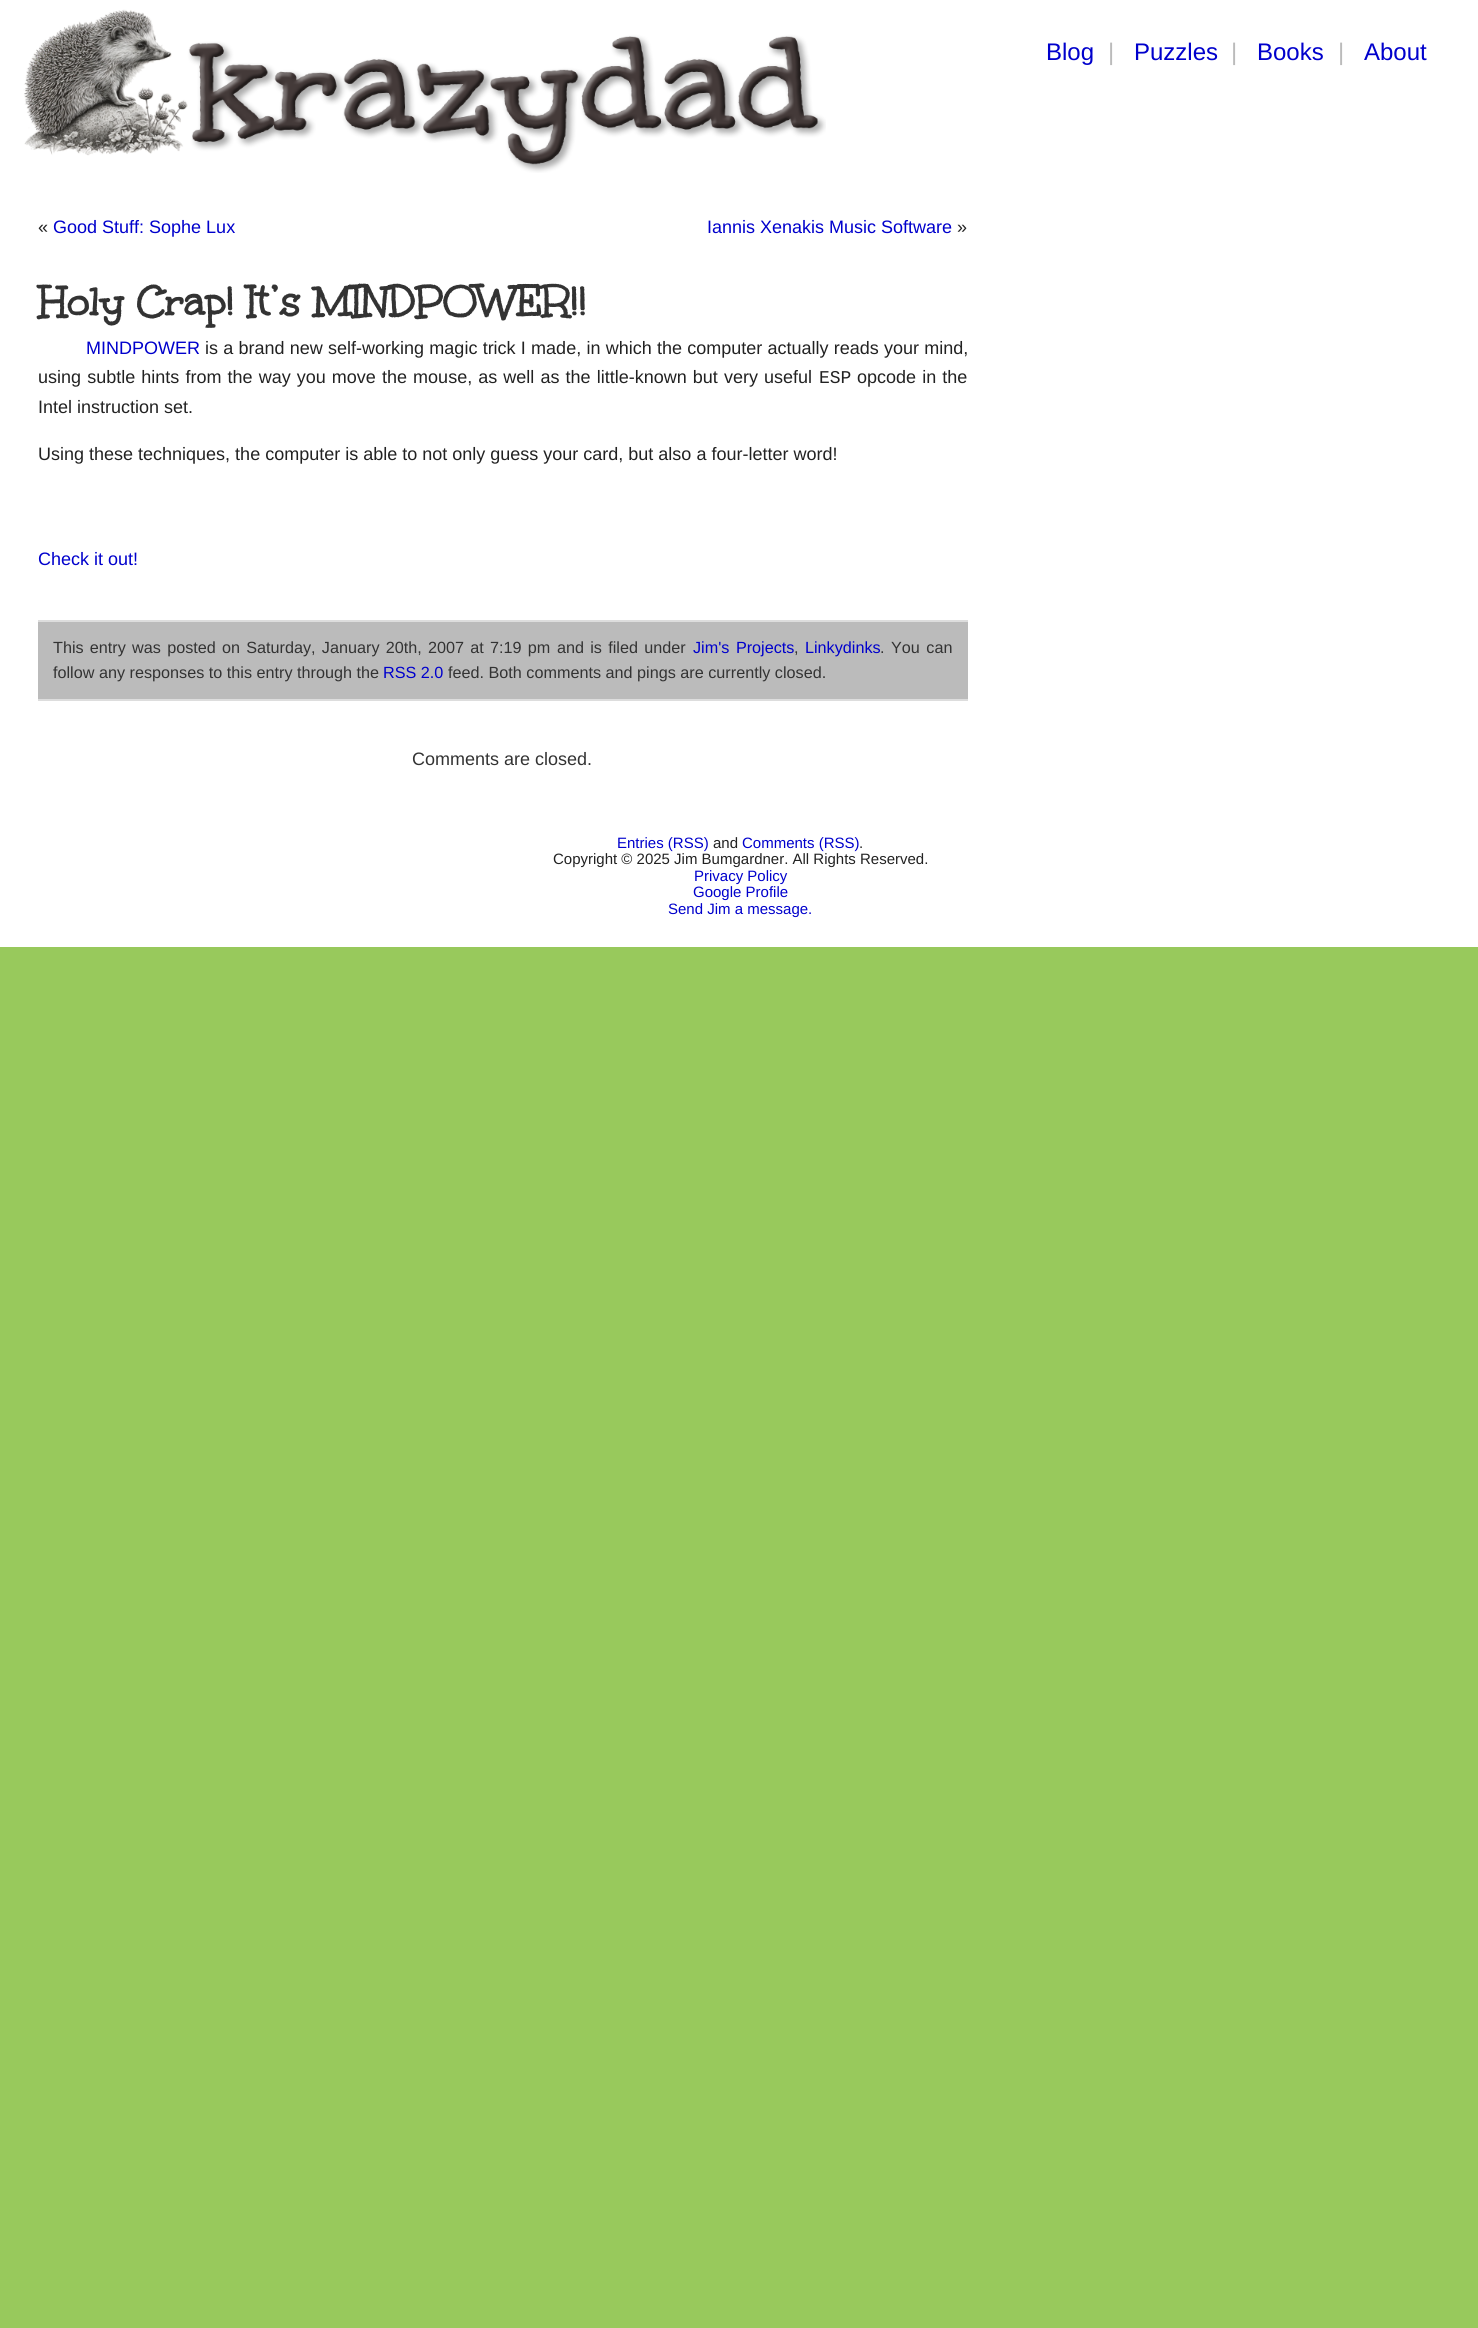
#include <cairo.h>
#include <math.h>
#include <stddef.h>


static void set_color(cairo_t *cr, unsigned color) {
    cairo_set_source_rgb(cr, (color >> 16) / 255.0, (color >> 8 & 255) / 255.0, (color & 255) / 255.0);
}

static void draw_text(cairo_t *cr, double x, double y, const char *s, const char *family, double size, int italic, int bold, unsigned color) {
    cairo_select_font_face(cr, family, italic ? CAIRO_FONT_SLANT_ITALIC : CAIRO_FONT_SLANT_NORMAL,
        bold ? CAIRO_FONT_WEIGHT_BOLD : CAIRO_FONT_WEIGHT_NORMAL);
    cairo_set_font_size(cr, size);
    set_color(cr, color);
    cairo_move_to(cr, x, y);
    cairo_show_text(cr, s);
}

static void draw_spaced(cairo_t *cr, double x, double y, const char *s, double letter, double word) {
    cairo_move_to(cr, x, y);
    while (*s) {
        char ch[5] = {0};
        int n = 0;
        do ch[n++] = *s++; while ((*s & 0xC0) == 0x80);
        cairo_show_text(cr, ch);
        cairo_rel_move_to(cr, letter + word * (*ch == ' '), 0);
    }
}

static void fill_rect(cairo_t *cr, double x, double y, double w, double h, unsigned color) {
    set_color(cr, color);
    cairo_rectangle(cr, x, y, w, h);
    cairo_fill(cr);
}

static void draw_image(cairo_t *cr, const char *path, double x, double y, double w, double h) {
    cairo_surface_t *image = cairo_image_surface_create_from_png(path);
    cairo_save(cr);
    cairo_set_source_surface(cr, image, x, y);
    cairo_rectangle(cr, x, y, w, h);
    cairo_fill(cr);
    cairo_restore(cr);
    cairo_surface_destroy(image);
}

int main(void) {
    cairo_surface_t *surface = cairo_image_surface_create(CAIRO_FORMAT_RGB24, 1478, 2328);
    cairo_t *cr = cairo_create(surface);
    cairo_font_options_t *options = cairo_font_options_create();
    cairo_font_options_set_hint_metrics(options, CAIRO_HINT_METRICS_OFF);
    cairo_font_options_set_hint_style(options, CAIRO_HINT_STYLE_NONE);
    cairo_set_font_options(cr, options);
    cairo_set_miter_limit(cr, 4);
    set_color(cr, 0x98C95C);
    cairo_paint(cr);
    fill_rect(cr, 0, 0, 1478, 947, 0xFFFFFF);
    draw_image(cr, "assets/img1.png", 23, 9, 803, 164);
    draw_text(cr, 1046, 60, "Blog", "Liberation Sans", 24, 0, 0, 0x0000CC);
    draw_text(cr, 1108, 60, "|", "Liberation Sans", 24, 0, 0, 0xBBBBBB);
    draw_text(cr, 1134, 60, "Puzzles", "Liberation Sans", 24, 0, 0, 0x0000CC);
    draw_text(cr, 1231, 60, "|", "Liberation Sans", 24, 0, 0, 0xBBBBBB);
    draw_text(cr, 1257, 60, "Books", "Liberation Sans", 24, 0, 0, 0x0000CC);
    draw_text(cr, 1338, 60, "|", "Liberation Sans", 24, 0, 0, 0xBBBBBB);
    draw_text(cr, 1364, 60, "About", "Liberation Sans", 24, 0, 0, 0x0000CC);
    draw_text(cr, 38, 233, "«", "Liberation Sans", 18, 0, 0, 0x222222);
    draw_text(cr, 53, 233, "Good Stuff: Sophe Lux", "Liberation Sans", 18, 0, 0, 0x0000CC);
    draw_text(cr, 707, 233, "Iannis Xenakis Music Software", "Liberation Sans", 18, 0, 0, 0x0000CC);
    draw_text(cr, 957, 233, "»", "Liberation Sans", 18, 0, 0, 0x222222);
    draw_text(cr, 38, 318, "Holy Crap! It’s MINDPOWER!!", "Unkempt", 45, 0, 1, 0x333333);
    draw_text(cr, 86, 354, "MINDPOWER", "Liberation Sans", 18, 0, 0, 0x0000CC);
    set_color(cr, 0x222222);
    draw_spaced(cr, 205, 354, "is a brand new self-working magic trick I made, in which the computer actually reads your mind,", 0, 0.25);
    draw_spaced(cr, 38, 383, "using subtle hints from the way you move the mouse, as well as the little-known but very useful", 0, 1.1);
    draw_text(cr, 819, 383, "ESP", "Liberation Mono", 18, 0, 0, 0x222222);
    cairo_select_font_face(cr, "Liberation Sans", CAIRO_FONT_SLANT_NORMAL, CAIRO_FONT_WEIGHT_NORMAL);
    draw_spaced(cr, 857, 383, "opcode in the", 0, 1.1);
    draw_text(cr, 38, 413, "Intel instruction set.", "Liberation Sans", 18, 0, 0, 0x222222);
    draw_text(cr, 38, 460, "Using these techniques, the computer is able to not only guess your card, but also a four-letter word!", "Liberation Sans", 18, 0, 0, 0x222222);
    draw_text(cr, 38, 565, "Check it out!", "Liberation Sans", 18, 0, 0, 0x0000CC);
    fill_rect(cr, 38, 622, 930, 77, 0xBBBBBB);
    fill_rect(cr, 38, 620, 930, 2, 0xDDDDDD);
    fill_rect(cr, 38, 699, 930, 2, 0xDDDDDD);
    cairo_set_font_size(cr, 16.2);
    set_color(cr, 0x333333);
    draw_spaced(cr, 53, 653, "This entry was posted", 0, 1.75);
    draw_spaced(cr, 222, 653, "on Saturday, January 20th, 2007 at 7:19 pm", 0, 1.75);
    draw_spaced(cr, 557, 653, "and is filed under", 0, 1.75);
    set_color(cr, 0x0000CC);
    draw_spaced(cr, 693, 653, "Jim's Projects", 0, 2);
    draw_text(cr, 794, 653, ",", "Liberation Sans", 16.2, 0, 0, 0x333333);
    draw_text(cr, 805, 653, "Linkydinks", "Liberation Sans", 16.2, 0, 0, 0x0000CC);
    draw_text(cr, 880, 653, ".", "Liberation Sans", 16.2, 0, 0, 0x333333);
    draw_spaced(cr, 891, 653, "You can", 0, 2);
    draw_text(cr, 53, 678, "follow any responses to this entry through the", "Liberation Sans", 16.2, 0, 0, 0x333333);
    draw_text(cr, 383, 678, "RSS 2.0", "Liberation Sans", 16.2, 0, 0, 0x0000CC);
    draw_text(cr, 448, 678, "feed. Both comments and pings are currently closed.", "Liberation Sans", 16.2, 0, 0, 0x333333);
    draw_text(cr, 412, 765, "Comments are closed.", "Liberation Sans", 18, 0, 0, 0x333333);
    draw_text(cr, 617, 848, "Entries (RSS)", "Liberation Sans", 15, 0, 0, 0x0000CC);
    draw_text(cr, 713, 848, "and", "Liberation Sans", 15, 0, 0, 0x222222);
    draw_text(cr, 742, 848, "Comments (RSS)", "Liberation Sans", 15, 0, 0, 0x0000CC);
    draw_text(cr, 859, 848, ".", "Liberation Sans", 15, 0, 0, 0x222222);
    draw_text(cr, 553, 864, "Copyright © 2025 Jim Bumgardner. All Rights Reserved.", "Liberation Sans", 15, 0, 0, 0x222222);
    draw_text(cr, 694, 881, "Privacy Policy", "Liberation Sans", 15, 0, 0, 0x0000CC);
    draw_text(cr, 693, 897, "Google Profile", "Liberation Sans", 15, 0, 0, 0x0000CC);
    draw_text(cr, 668, 914, "Send Jim a message.", "Liberation Sans", 15, 0, 0, 0x0000CC);
    cairo_surface_write_to_png(surface, "output.png");
    cairo_font_options_destroy(options);
    cairo_destroy(cr);
    cairo_surface_destroy(surface);
    return 0;
}
